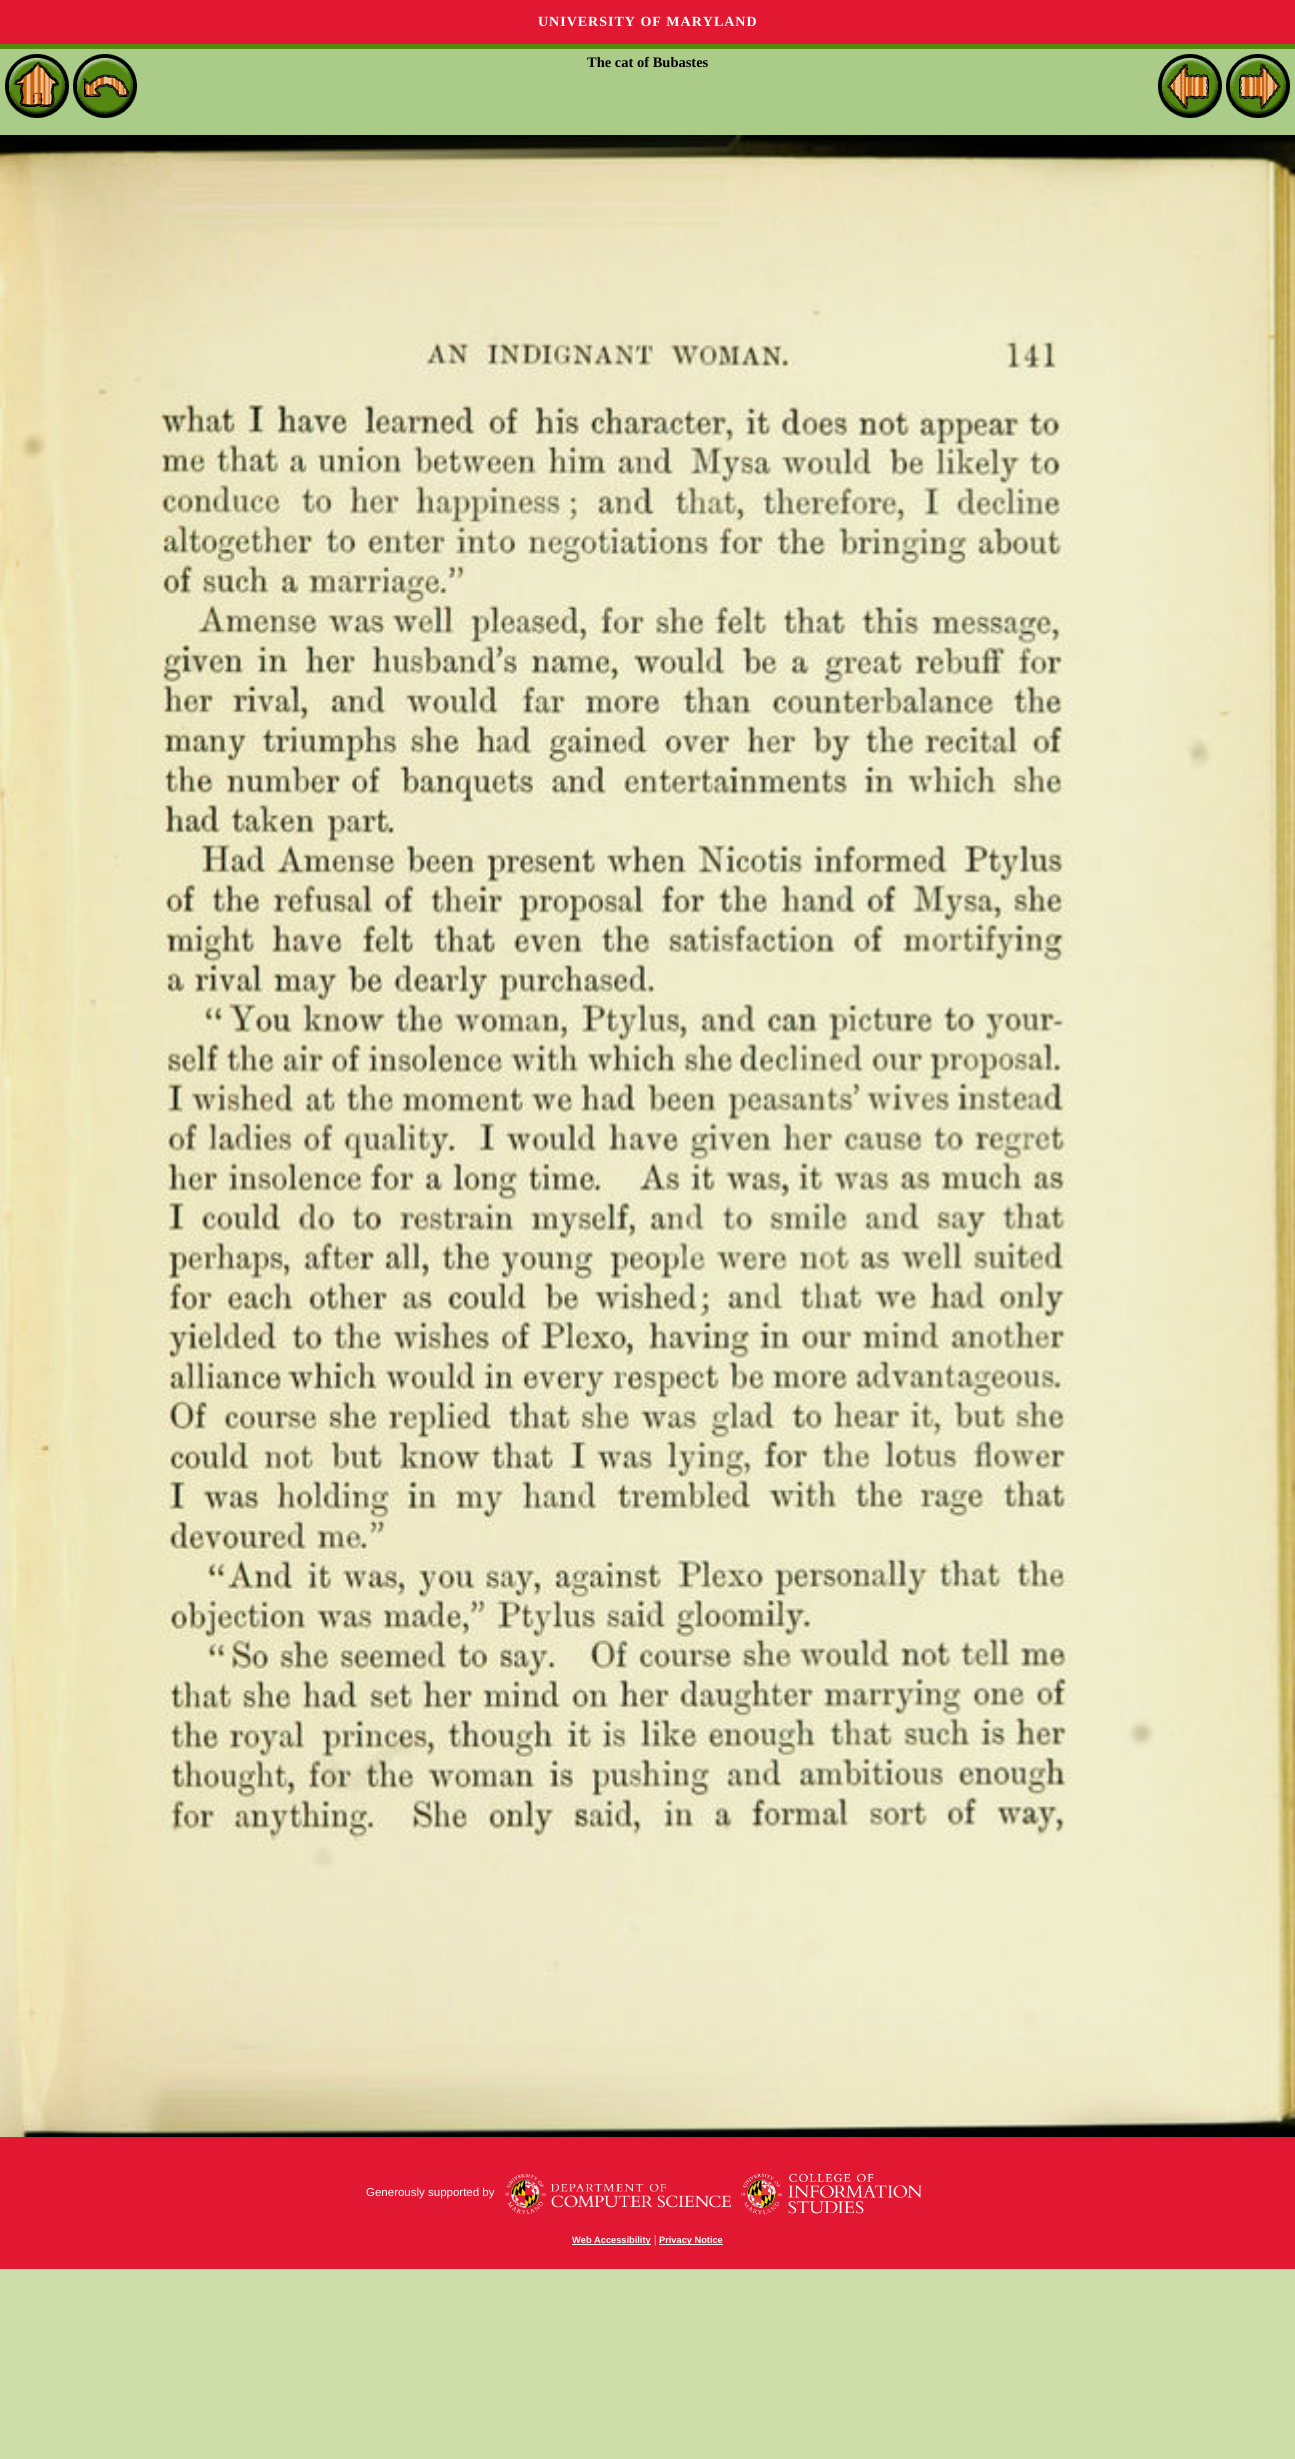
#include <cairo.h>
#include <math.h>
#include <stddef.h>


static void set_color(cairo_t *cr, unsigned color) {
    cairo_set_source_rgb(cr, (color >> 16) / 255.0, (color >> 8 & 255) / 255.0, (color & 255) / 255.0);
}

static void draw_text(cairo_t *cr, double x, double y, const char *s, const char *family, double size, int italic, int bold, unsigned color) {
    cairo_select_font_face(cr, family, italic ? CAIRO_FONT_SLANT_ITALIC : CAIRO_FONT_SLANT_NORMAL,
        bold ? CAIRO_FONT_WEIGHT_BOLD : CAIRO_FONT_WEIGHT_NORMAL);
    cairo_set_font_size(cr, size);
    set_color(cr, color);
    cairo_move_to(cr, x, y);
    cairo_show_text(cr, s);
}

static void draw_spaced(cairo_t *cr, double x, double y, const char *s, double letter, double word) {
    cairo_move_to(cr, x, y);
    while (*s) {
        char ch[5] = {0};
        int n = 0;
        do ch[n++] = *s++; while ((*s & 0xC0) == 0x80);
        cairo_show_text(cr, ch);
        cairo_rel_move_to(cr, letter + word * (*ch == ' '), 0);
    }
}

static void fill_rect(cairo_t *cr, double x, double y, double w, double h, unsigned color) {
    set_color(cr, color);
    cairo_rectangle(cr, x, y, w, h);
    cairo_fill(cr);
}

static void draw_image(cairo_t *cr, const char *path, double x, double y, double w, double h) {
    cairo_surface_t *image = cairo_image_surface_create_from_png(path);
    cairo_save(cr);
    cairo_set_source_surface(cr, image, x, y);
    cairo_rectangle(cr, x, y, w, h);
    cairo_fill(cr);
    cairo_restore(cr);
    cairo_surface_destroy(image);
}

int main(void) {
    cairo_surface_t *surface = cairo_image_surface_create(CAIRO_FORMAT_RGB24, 1295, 2459);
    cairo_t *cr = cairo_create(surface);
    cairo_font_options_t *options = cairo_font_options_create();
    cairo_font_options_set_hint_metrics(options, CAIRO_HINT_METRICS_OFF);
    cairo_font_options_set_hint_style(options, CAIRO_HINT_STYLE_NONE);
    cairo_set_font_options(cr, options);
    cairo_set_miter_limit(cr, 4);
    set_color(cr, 0xCCDDAA);
    cairo_paint(cr);
    fill_rect(cr, 0, 0, 1295, 44, 0xE21833);
    cairo_select_font_face(cr, "Liberation Serif", CAIRO_FONT_SLANT_NORMAL, CAIRO_FONT_WEIGHT_BOLD);
    cairo_set_font_size(cr, 14);
    set_color(cr, 0xFFFFFF);
    draw_spaced(cr, 538, 26, "UNIVERSITY OF MARYLAND", 1, 0);
    fill_rect(cr, 0, 49, 1295, 86, 0xAACC88);
    fill_rect(cr, 0, 44, 1295, 5, 0x558811);
    draw_image(cr, "assets/img1.png", 5, 54, 64, 64);
    draw_image(cr, "assets/img2.png", 73, 54, 64, 64);
    draw_text(cr, 587, 67, "The cat of Bubastes", "Liberation Serif", 14.5, 0, 1, 0x000000);
    draw_image(cr, "assets/img3.png", 1158, 54, 64, 64);
    draw_image(cr, "assets/img4.png", 1226, 54, 64, 64);
    draw_image(cr, "assets/img5.png", 0, 135, 1295, 2002);
    fill_rect(cr, 0, 2137, 1295, 132, 0xE21833);
    draw_text(cr, 366, 2196, "Generously supported by", "Liberation Sans", 11.5, 0, 0, 0xFFFFFF);
    draw_image(cr, "assets/img6.png", 505, 2174, 226, 40);
    draw_image(cr, "assets/img7.png", 741, 2173, 182, 42);
    fill_rect(cr, 572, 2244, 79, 1, 0xFFFFFF);
    draw_text(cr, 572, 2243, "Web Accessibility", "Liberation Sans", 9.25, 0, 1, 0xFFFFFF);
    draw_text(cr, 654, 2243, "|", "Liberation Serif", 11.5, 0, 0, 0xFFFFFF);
    fill_rect(cr, 659, 2244, 64, 1, 0xFFFFFF);
    draw_text(cr, 659, 2243, "Privacy Notice", "Liberation Sans", 9.25, 0, 1, 0xFFFFFF);
    cairo_surface_write_to_png(surface, "output.png");
    cairo_font_options_destroy(options);
    cairo_destroy(cr);
    cairo_surface_destroy(surface);
    return 0;
}
